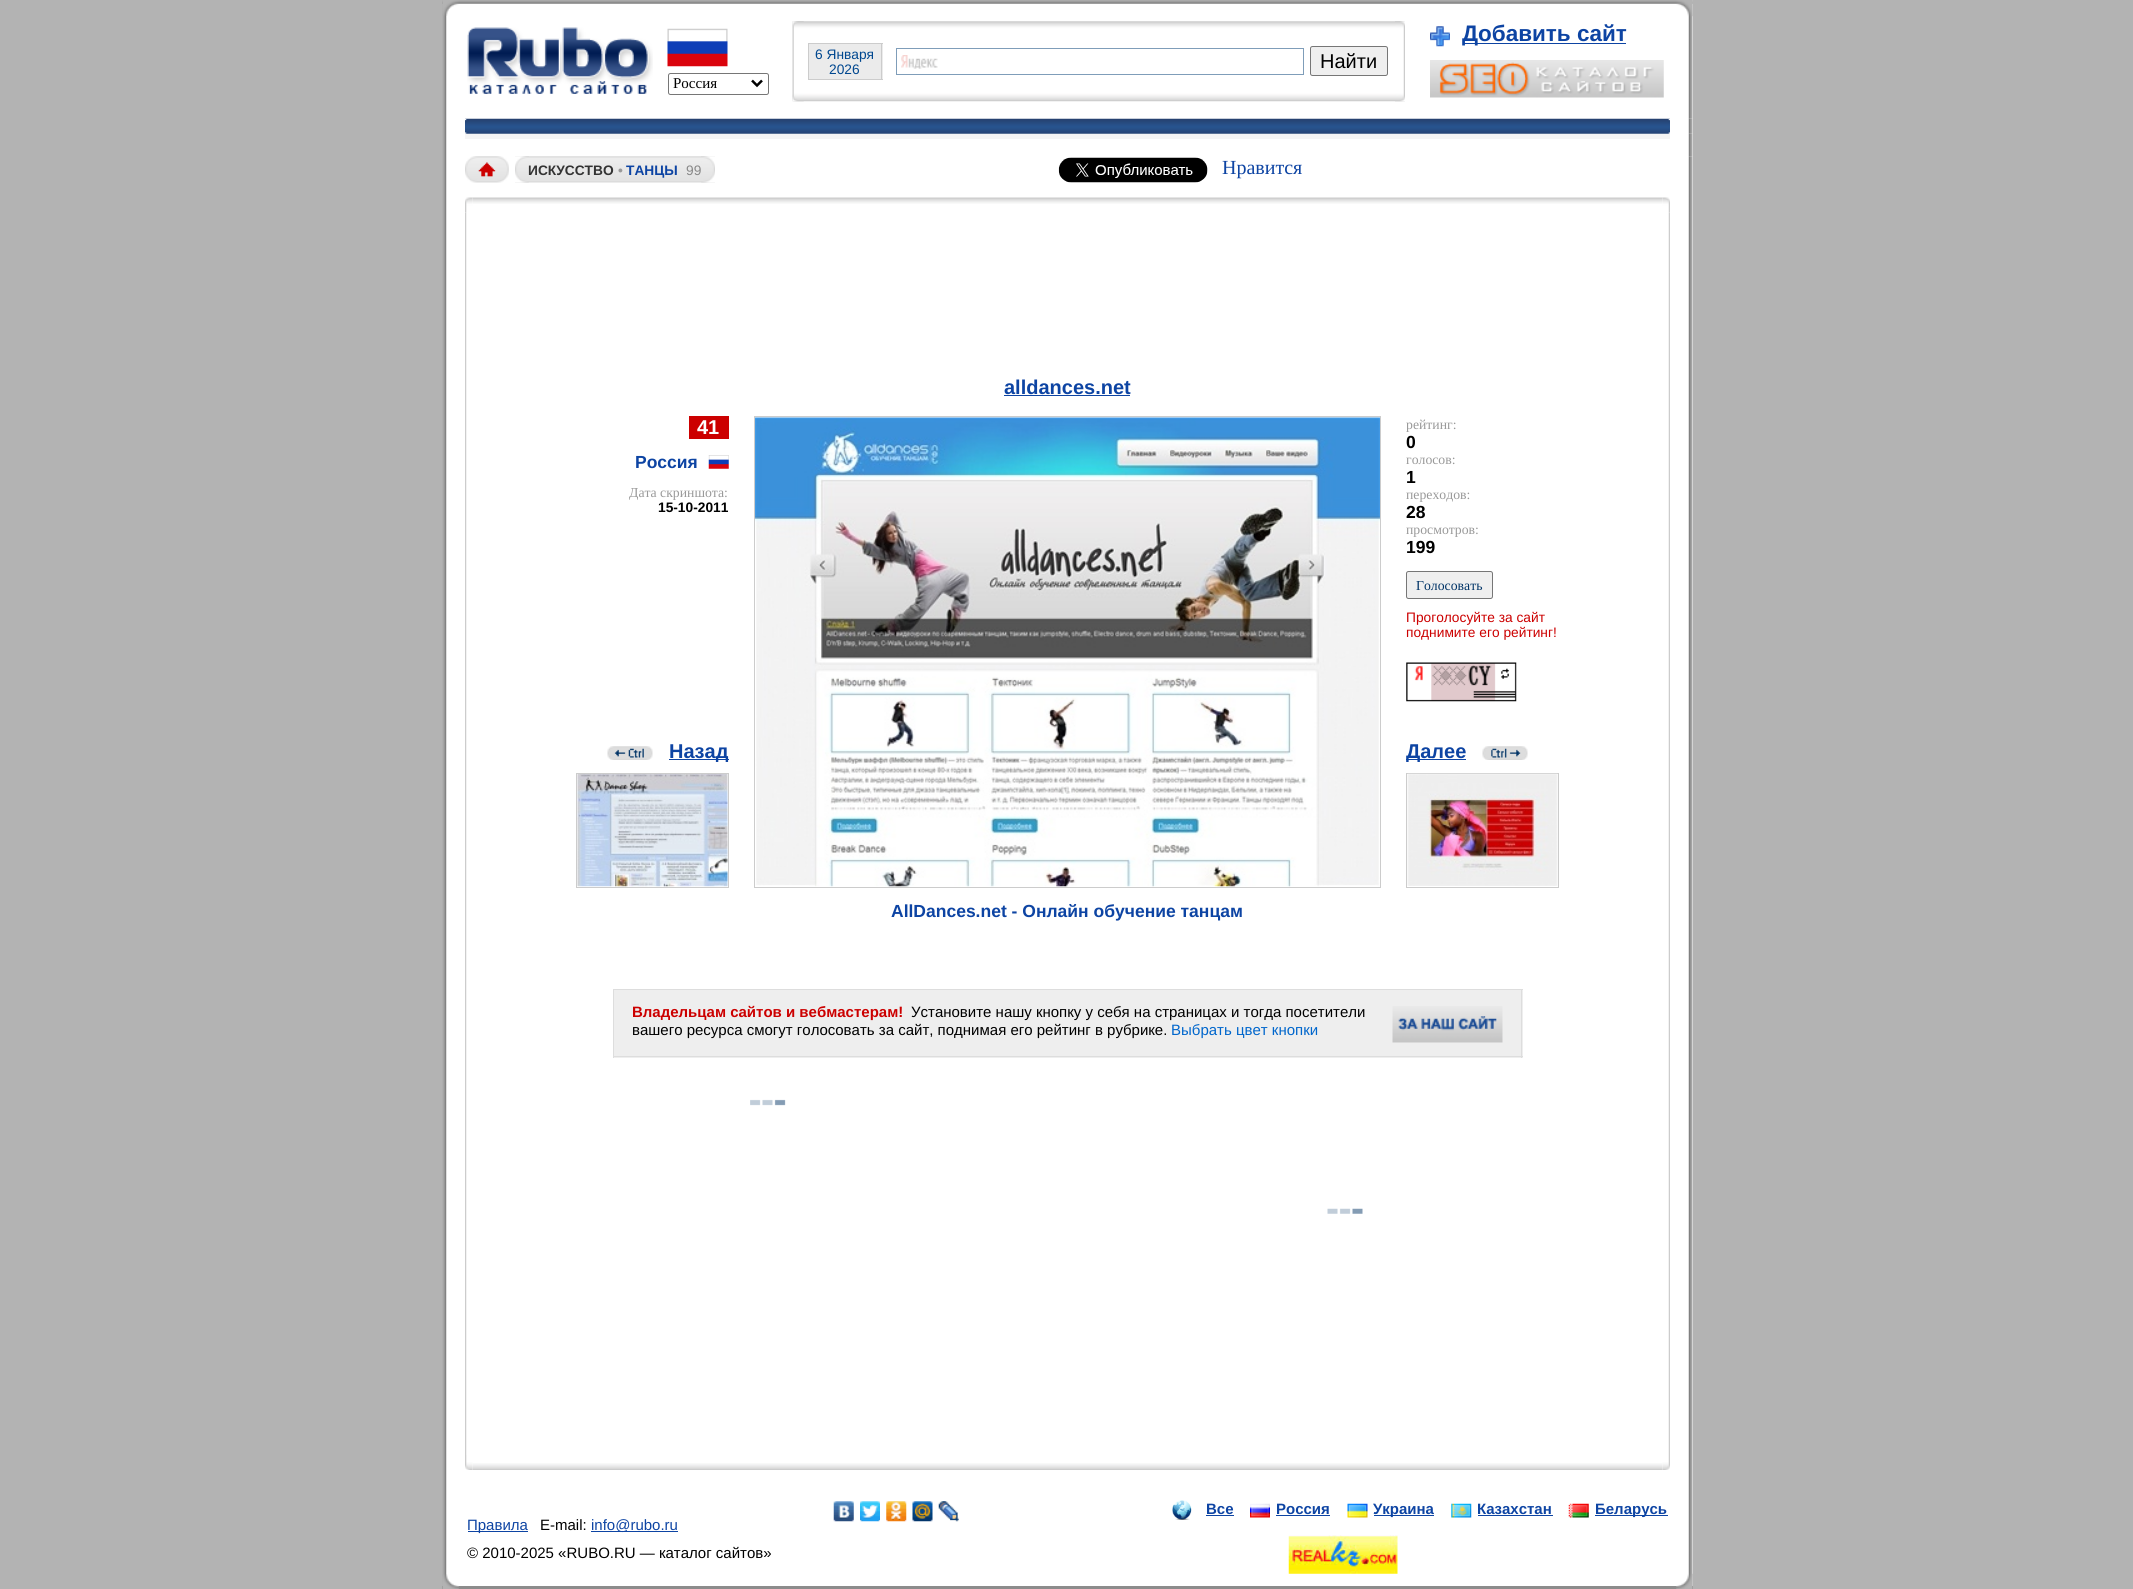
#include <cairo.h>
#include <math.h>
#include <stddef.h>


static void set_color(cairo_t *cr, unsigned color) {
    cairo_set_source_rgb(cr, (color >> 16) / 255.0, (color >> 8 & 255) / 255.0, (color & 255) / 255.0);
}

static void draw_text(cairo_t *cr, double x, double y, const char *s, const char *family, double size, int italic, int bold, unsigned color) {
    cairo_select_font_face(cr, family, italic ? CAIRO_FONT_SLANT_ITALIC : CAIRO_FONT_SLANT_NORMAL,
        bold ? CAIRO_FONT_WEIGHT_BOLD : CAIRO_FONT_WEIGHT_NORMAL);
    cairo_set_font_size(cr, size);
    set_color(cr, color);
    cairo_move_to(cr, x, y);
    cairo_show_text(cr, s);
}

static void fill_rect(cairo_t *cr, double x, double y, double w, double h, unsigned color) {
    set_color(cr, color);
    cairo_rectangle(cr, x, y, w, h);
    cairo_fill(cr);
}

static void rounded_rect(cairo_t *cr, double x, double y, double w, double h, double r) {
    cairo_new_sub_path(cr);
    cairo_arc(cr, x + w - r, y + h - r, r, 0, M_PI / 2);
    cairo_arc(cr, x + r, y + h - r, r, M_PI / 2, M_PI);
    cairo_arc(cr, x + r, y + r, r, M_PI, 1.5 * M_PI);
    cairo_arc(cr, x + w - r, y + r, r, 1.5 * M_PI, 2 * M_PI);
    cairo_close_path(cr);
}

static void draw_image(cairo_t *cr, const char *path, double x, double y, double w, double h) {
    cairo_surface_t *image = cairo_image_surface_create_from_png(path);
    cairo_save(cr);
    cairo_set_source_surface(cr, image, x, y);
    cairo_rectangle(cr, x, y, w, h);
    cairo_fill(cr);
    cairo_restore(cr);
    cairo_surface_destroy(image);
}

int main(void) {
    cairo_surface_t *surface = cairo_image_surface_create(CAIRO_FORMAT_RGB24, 2133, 1589);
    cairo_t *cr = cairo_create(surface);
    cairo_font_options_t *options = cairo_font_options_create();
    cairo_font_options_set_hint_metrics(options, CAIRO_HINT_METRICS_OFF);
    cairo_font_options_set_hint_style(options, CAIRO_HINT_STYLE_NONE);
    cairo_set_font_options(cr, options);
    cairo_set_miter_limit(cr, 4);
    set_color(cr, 0xB3B3B3);
    cairo_paint(cr);
    fill_rect(cr, 446, 0, 1247, 1586, 0xFFFFFF);
    draw_image(cr, "assets/img1.png", 442, 0, 5, 1586);
    draw_image(cr, "assets/img2.png", 1688, 0, 5, 119);
    draw_image(cr, "assets/img3.png", 442, 0, 1251, 4);
    draw_image(cr, "assets/img4.png", 442, 0, 17, 16);
    draw_image(cr, "assets/img5.png", 1676, 0, 17, 17);
    draw_image(cr, "assets/img6.png", 467, 27, 186, 67);
    draw_image(cr, "assets/img7.png", 792, 21, 613, 81);
    draw_image(cr, "assets/img8.png", 792, 21, 12, 81);
    fill_rect(cr, 809, 44, 74, 35, 0xEBEBEB);
    fill_rect(cr, 808, 43, 75, 1, 0xCCCCCC);
    fill_rect(cr, 881, 43, 1, 37, 0xCCCCCC);
    fill_rect(cr, 808, 79, 75, 1, 0xCCCCCC);
    fill_rect(cr, 808, 43, 1, 37, 0xCCCCCC);
    draw_text(cr, 815, 59, "6 Января", "Liberation Sans", 13.75, 0, 0, 0x00478F);
    draw_text(cr, 829, 74, "2026", "Liberation Sans", 13.75, 0, 0, 0x00478F);
    draw_image(cr, "assets/img9.png", 901, 55, 37, 14);
    cairo_rectangle(cr, 896.5, 48.5, 407, 26);
    set_color(cr, 0x7F9DB9);
    cairo_set_line_width(cr, 1);
    cairo_stroke(cr);
    set_color(cr, 0xEFEFEF);
    rounded_rect(cr, 1310.5, 46.5, 77, 29, 2);
    cairo_fill_preserve(cr);
    set_color(cr, 0x767676);
    cairo_stroke(cr);
    draw_text(cr, 1320, 68, "Найти", "Liberation Sans", 20, 0, 0, 0x000000);
    draw_image(cr, "assets/img10.png", 1395, 21, 10, 81);
    draw_image(cr, "assets/img11.png", 1430, 26, 20, 21);
    fill_rect(cr, 1463, 43, 163, 1, 0x0D44A3);
    draw_text(cr, 1462, 41, "Добавить сайт", "Liberation Sans", 22.5, 0, 1, 0x0D44A3);
    draw_image(cr, "assets/img12.png", 1430, 60, 234, 38);
    draw_image(cr, "assets/img13.png", 667, 28, 61, 39);
    rounded_rect(cr, 668.5, 73.5, 100, 21, 2);
    set_color(cr, 0x767676);
    cairo_stroke(cr);
    cairo_new_path(cr);
    cairo_move_to(cr, 752, 80.5);
    cairo_line_to(cr, 757, 85.5);
    cairo_line_to(cr, 762, 80.5);
    set_color(cr, 0x000000);
    cairo_set_line_width(cr, 2.5);
    cairo_stroke(cr);
    draw_text(cr, 673, 88, "Россия", "Liberation Serif", 15, 0, 0, 0x000000);
    draw_image(cr, "assets/img14.png", 1688, 118, 5, 16);
    draw_image(cr, "assets/img15.png", 465, 118, 1205, 16);
    draw_image(cr, "assets/img16.png", 465, 118, 2, 16);
    draw_image(cr, "assets/img17.png", 1668, 118, 2, 16);
    draw_image(cr, "assets/img18.png", 1688, 133, 5, 24);
    fill_rect(cr, 465, 134, 1205, 5, 0xF5F5F5);
    draw_image(cr, "assets/img19.png", 1688, 156, 5, 29);
    draw_image(cr, "assets/img20.png", 465, 156, 44, 27);
    draw_image(cr, "assets/img21.png", 515, 156, 200, 27);
    draw_image(cr, "assets/img22.png", 515, 156, 14, 27);
    draw_text(cr, 528, 175, "ИСКУССТВО", "Liberation Sans", 13.75, 0, 1, 0x333333);
    draw_text(cr, 618, 175, "•", "Liberation Sans", 13.75, 0, 1, 0x999999);
    draw_text(cr, 626, 175, "ТАНЦЫ", "Liberation Sans", 13.75, 0, 1, 0x0D44A3);
    draw_text(cr, 686, 175, "99", "Liberation Sans", 13.75, 0, 0, 0x888888);
    draw_image(cr, "assets/img23.png", 701, 156, 14, 27);
    draw_image(cr, "assets/img24.png", 1058, 157, 150, 26);
    draw_text(cr, 1222, 174, "Нравится", "Liberation Serif", 20, 0, 0, 0x0D44A3);
    draw_image(cr, "assets/img25.png", 1688, 185, 5, 1295);
    draw_image(cr, "assets/img26.png", 465, 197, 8, 16);
    draw_image(cr, "assets/img27.png", 472, 197, 1191, 7);
    draw_image(cr, "assets/img28.png", 1662, 197, 8, 16);
    draw_image(cr, "assets/img29.png", 465, 212, 2, 1243);
    fill_rect(cr, 689, 416, 40, 23, 0xCC0000);
    draw_text(cr, 697, 434, "41", "Liberation Sans", 20, 0, 1, 0xFFFFFF);
    draw_text(cr, 635, 468, "Россия", "Liberation Sans", 17.5, 0, 1, 0x0D44A3);
    draw_image(cr, "assets/img30.png", 708, 455, 21, 14);
    draw_text(cr, 629, 497, "Дата cкриншота:", "Liberation Serif", 13.75, 0, 0, 0x999999);
    draw_text(cr, 658, 512, "15-10-2011", "Liberation Sans", 13.75, 0, 1, 0x000000);
    draw_image(cr, "assets/img31.png", 607, 746, 46, 14);
    fill_rect(cr, 669, 759, 60, 1, 0x0D44A3);
    draw_text(cr, 669, 758, "Назад", "Liberation Sans", 20, 0, 1, 0x0D44A3);
    cairo_rectangle(cr, 576.5, 773.5, 152, 114);
    set_color(cr, 0xCCCCCC);
    cairo_set_line_width(cr, 1);
    cairo_stroke(cr);
    draw_image(cr, "assets/img32.png", 577, 774, 151, 113);
    draw_text(cr, 1004, 394, "alldances.net", "Liberation Sans", 20, 0, 1, 0x0D44A3);
    fill_rect(cr, 1004, 395, 126, 1, 0x0D44A3);
    cairo_rectangle(cr, 754.5, 416.5, 626, 471);
    set_color(cr, 0xCCCCCC);
    cairo_stroke(cr);
    draw_image(cr, "assets/img33.png", 755, 417, 625, 470);
    draw_text(cr, 891, 917, "AllDances.net - Онлайн обучение танцам", "Liberation Sans", 17.5, 0, 1, 0x0D44A3);
    draw_text(cr, 1406, 429, "рейтинг:", "Liberation Serif", 13.75, 0, 0, 0x999999);
    draw_text(cr, 1406, 448, "0", "Liberation Sans", 17.5, 0, 1, 0x000000);
    draw_text(cr, 1406, 464, "голосов:", "Liberation Serif", 13.75, 0, 0, 0x999999);
    draw_text(cr, 1406, 483, "1", "Liberation Sans", 17.5, 0, 1, 0x000000);
    draw_text(cr, 1406, 499, "переходов:", "Liberation Serif", 13.75, 0, 0, 0x999999);
    draw_text(cr, 1406, 518, "28", "Liberation Sans", 17.5, 0, 1, 0x000000);
    draw_text(cr, 1406, 534, "просмотров:", "Liberation Serif", 13.75, 0, 0, 0x999999);
    draw_text(cr, 1406, 553, "199", "Liberation Sans", 17.5, 0, 1, 0x000000);
    set_color(cr, 0xEFEFEF);
    rounded_rect(cr, 1406.5, 571.5, 86, 27, 2);
    cairo_fill_preserve(cr);
    set_color(cr, 0x767676);
    cairo_stroke(cr);
    draw_text(cr, 1416, 590, "Голосовать", "Liberation Serif", 13.75, 0, 0, 0x003366);
    draw_text(cr, 1406, 622, "Проголосуйте за сайт", "Liberation Sans", 13.75, 0, 0, 0xCC0000);
    draw_text(cr, 1406, 637, "поднимите его рейтинг!", "Liberation Sans", 13.75, 0, 0, 0xCC0000);
    draw_image(cr, "assets/img34.png", 1406, 662, 111, 40);
    fill_rect(cr, 1406, 759, 60, 1, 0x0D44A3);
    draw_text(cr, 1406, 758, "Далее", "Liberation Sans", 20, 0, 1, 0x0D44A3);
    draw_image(cr, "assets/img35.png", 1482, 746, 46, 14);
    cairo_rectangle(cr, 1406.5, 773.5, 152, 114);
    set_color(cr, 0xCCCCCC);
    cairo_stroke(cr);
    draw_image(cr, "assets/img36.png", 1407, 773, 151, 113);
    fill_rect(cr, 614, 990, 909, 68, 0xEEEEEE);
    fill_rect(cr, 613, 989, 910, 1, 0xDDDDDD);
    fill_rect(cr, 1521, 989, 1, 69, 0xDDDDDD);
    fill_rect(cr, 613, 1056, 910, 1, 0xDDDDDD);
    fill_rect(cr, 613, 989, 1, 69, 0xDDDDDD);
    draw_text(cr, 632, 1017, "Владельцам сайтов и вебмастерам!", "Liberation Sans", 15, 0, 1, 0xCC0000);
    draw_text(cr, 911, 1017, "Установите нашу кнопку у себя на страницах и тогда посетители", "Liberation Sans", 15, 0, 0, 0x000000);
    draw_image(cr, "assets/img37.png", 1392, 1006, 111, 37);
    draw_text(cr, 632, 1035, "вашего ресурса смогут голосовать за сайт, поднимая его рейтинг в рубрике.", "Liberation Sans", 15, 0, 0, 0x000000);
    draw_text(cr, 1171, 1035, "Выбрать цвет кнопки", "Liberation Sans", 15, 0, 0, 0x0066CC);
    draw_image(cr, "assets/img38.png", 750, 1099, 36, 7);
    draw_image(cr, "assets/img39.png", 1327, 1208, 36, 6);
    draw_image(cr, "assets/img40.png", 1668, 212, 2, 1243);
    draw_image(cr, "assets/img41.png", 465, 1455, 8, 15);
    draw_image(cr, "assets/img42.png", 472, 1463, 1191, 7);
    draw_image(cr, "assets/img43.png", 1662, 1455, 8, 15);
    draw_image(cr, "assets/img44.png", 1688, 1480, 5, 106);
    fill_rect(cr, 442, 1586, 1251, 3, 0x8C8C8C);
    draw_image(cr, "assets/img45.png", 1676, 1573, 17, 16);
    draw_image(cr, "assets/img46.png", 833, 1501, 21, 21);
    draw_image(cr, "assets/img47.png", 860, 1501, 20, 21);
    draw_image(cr, "assets/img48.png", 886, 1501, 21, 21);
    draw_image(cr, "assets/img49.png", 912, 1501, 21, 21);
    draw_image(cr, "assets/img50.png", 938, 1501, 21, 21);
    draw_image(cr, "assets/img51.png", 1172, 1500, 20, 20);
    draw_text(cr, 1206, 1514, "Все", "Liberation Sans", 15, 0, 1, 0x0D44A3);
    fill_rect(cr, 1206, 1515, 28, 1, 0x0D44A3);
    draw_image(cr, "assets/img52.png", 1250, 1503, 20, 15);
    draw_text(cr, 1276, 1514, "Россия", "Liberation Sans", 15, 0, 1, 0x0D44A3);
    fill_rect(cr, 1276, 1515, 54, 1, 0x0D44A3);
    draw_image(cr, "assets/img53.png", 1347, 1503, 21, 15);
    fill_rect(cr, 1374, 1515, 60, 1, 0x0D44A3);
    draw_text(cr, 1373, 1514, "Украина", "Liberation Sans", 15, 0, 1, 0x0D44A3);
    draw_image(cr, "assets/img54.png", 1451, 1503, 21, 15);
    draw_text(cr, 1477, 1514, "Казахстан", "Liberation Sans", 15, 0, 1, 0x0D44A3);
    fill_rect(cr, 1478, 1515, 75, 1, 0x0D44A3);
    draw_image(cr, "assets/img55.png", 1568, 1503, 21, 15);
    fill_rect(cr, 1595, 1515, 73, 1, 0x0D44A3);
    draw_text(cr, 1595, 1514, "Беларусь", "Liberation Sans", 15, 0, 1, 0x0D44A3);
    draw_image(cr, "assets/img56.png", 1288, 1535, 110, 39);
    draw_image(cr, "assets/img57.png", 442, 1574, 17, 15);
    fill_rect(cr, 468, 1531, 60, 1, 0x0D44A3);
    draw_text(cr, 467, 1530, "Правила", "Liberation Sans", 15, 0, 0, 0x0D44A3);
    draw_text(cr, 540, 1530, "E-mail:", "Liberation Sans", 15, 0, 0, 0x000000);
    fill_rect(cr, 591, 1531, 87, 1, 0x0D44A3);
    draw_text(cr, 591, 1530, "info@rubo.ru", "Liberation Sans", 15, 0, 0, 0x0D44A3);
    draw_text(cr, 467, 1558, "© 2010-2025 «RUBO.RU — каталог сайтов»", "Liberation Sans", 15, 0, 0, 0x000000);
    cairo_surface_write_to_png(surface, "output.png");
    cairo_font_options_destroy(options);
    cairo_destroy(cr);
    cairo_surface_destroy(surface);
    return 0;
}
